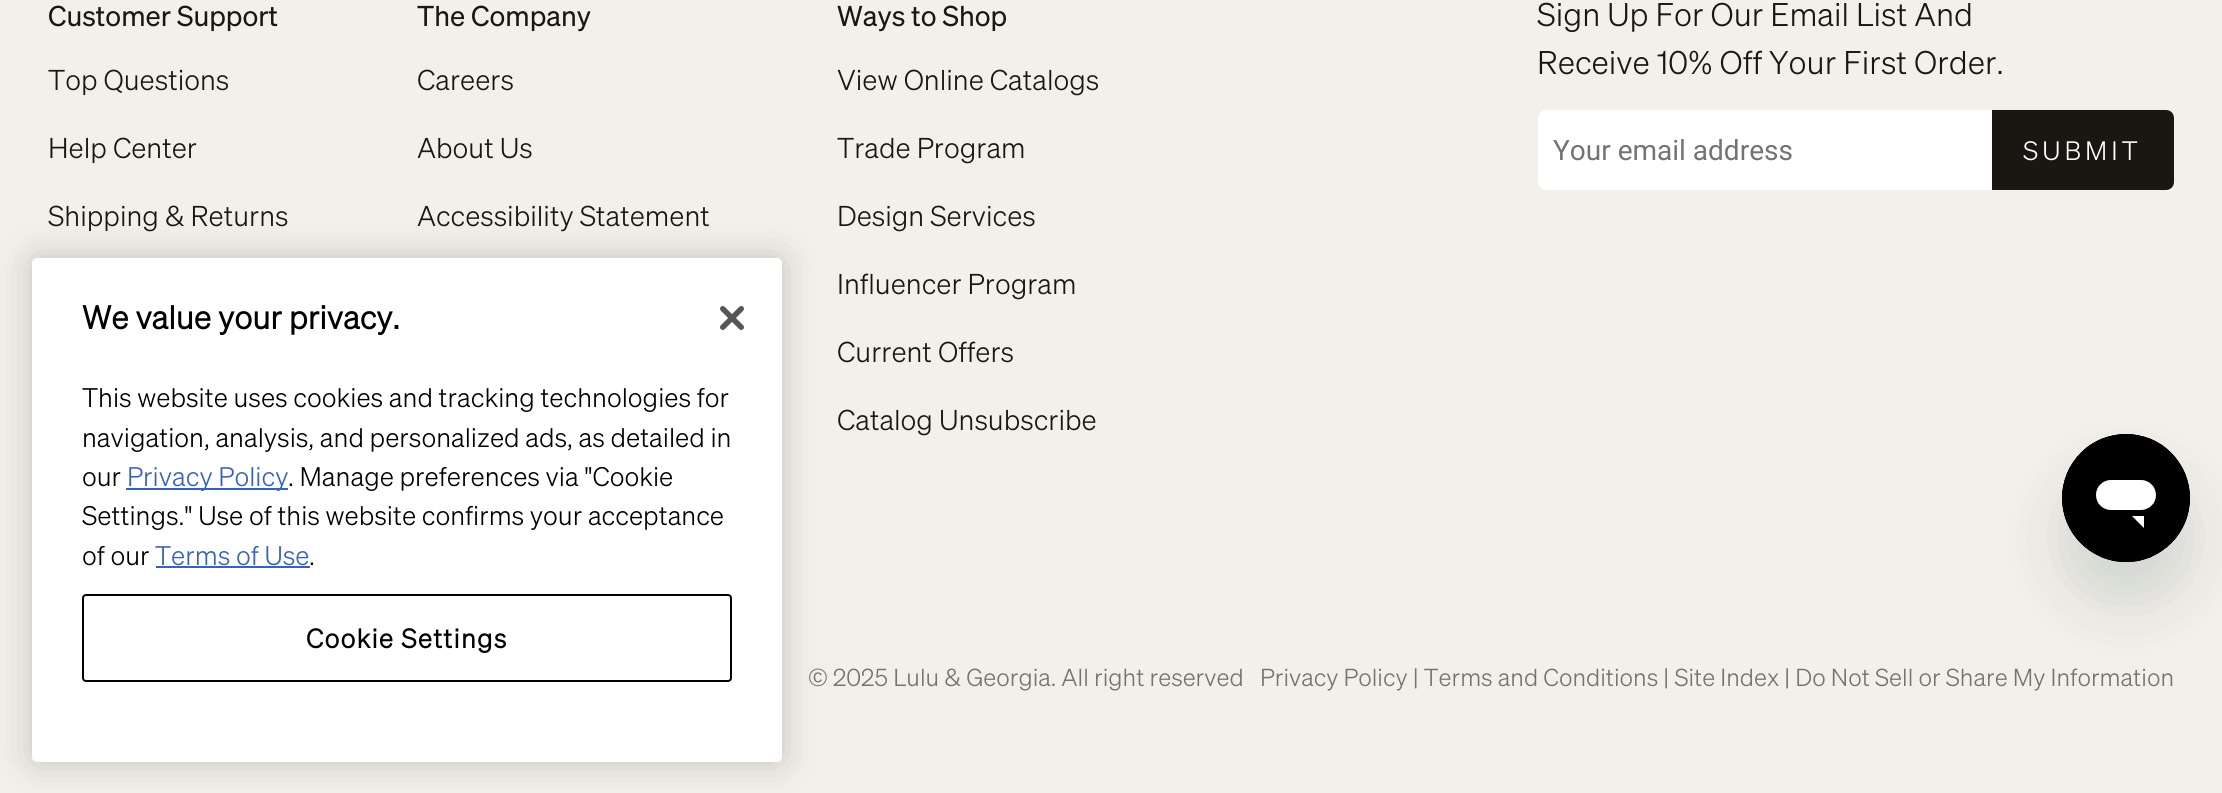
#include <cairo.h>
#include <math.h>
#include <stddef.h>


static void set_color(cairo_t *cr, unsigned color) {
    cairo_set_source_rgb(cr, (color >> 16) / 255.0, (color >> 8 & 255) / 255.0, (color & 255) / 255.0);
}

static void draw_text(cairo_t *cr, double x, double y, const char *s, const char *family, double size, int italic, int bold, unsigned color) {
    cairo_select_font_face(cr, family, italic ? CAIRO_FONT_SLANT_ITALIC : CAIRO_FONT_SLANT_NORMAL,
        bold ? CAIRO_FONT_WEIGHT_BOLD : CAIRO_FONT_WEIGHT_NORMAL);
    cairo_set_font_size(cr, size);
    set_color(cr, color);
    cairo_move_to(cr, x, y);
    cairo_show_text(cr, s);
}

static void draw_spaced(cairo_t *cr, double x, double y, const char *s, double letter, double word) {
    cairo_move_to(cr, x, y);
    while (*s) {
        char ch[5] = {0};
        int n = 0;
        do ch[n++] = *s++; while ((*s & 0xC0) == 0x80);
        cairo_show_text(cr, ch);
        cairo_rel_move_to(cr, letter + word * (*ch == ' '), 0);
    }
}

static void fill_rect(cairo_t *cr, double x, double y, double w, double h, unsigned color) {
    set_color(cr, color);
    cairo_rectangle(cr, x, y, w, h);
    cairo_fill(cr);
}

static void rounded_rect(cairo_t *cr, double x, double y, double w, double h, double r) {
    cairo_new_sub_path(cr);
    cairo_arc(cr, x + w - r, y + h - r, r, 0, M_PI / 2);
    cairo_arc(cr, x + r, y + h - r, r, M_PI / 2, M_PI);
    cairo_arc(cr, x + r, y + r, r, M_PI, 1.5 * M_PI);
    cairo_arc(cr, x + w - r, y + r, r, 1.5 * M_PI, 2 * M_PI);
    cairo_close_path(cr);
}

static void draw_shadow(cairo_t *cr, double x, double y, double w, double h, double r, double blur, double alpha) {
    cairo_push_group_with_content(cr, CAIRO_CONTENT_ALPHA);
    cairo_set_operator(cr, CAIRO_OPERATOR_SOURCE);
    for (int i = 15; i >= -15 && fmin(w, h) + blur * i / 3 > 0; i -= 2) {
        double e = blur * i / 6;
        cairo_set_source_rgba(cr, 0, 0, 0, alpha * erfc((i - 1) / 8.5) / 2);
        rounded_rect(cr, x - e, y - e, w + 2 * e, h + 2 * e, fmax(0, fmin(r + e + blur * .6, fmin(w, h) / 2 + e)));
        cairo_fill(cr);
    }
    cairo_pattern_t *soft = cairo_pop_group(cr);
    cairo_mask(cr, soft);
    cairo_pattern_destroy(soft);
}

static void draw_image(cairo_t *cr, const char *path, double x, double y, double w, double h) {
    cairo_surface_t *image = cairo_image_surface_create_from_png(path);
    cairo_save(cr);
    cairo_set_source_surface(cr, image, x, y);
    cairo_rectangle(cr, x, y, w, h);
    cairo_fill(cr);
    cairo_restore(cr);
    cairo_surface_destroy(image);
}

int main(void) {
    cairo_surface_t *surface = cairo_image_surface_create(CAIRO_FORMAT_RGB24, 2222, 793);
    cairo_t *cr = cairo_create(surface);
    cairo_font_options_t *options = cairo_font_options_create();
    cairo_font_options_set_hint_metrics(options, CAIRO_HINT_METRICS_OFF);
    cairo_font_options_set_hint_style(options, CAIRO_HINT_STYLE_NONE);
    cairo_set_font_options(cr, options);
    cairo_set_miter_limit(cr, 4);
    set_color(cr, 0xF3EFE9);
    cairo_paint(cr);
    draw_text(cr, 48, 26, "Customer Support", "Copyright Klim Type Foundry", 28, 0, 0, 0x1A1713);
    draw_text(cr, 48, 90, "Top Questions", "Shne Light", 28, 0, 0, 0x1A1713);
    draw_text(cr, 48, 158, "Help Center", "Shne Light", 28, 0, 0, 0x1A1713);
    draw_text(cr, 48, 226, "Shipping & Returns", "Shne Light", 28, 0, 0, 0x1A1713);
    draw_text(cr, 417, 26, "The Company", "Copyright Klim Type Foundry", 28, 0, 0, 0x1A1713);
    draw_text(cr, 417, 90, "Careers", "Shne Light", 28, 0, 0, 0x1A1713);
    draw_text(cr, 417, 158, "About Us", "Shne Light", 28, 0, 0, 0x1A1713);
    draw_text(cr, 417, 226, "Accessibility Statement", "Shne Light", 28, 0, 0, 0x1A1713);
    draw_text(cr, 837, 26, "Ways to Shop", "Copyright Klim Type Foundry", 28, 0, 0, 0x1A1713);
    draw_text(cr, 837, 90, "View Online Catalogs", "Shne Light", 28, 0, 0, 0x1A1713);
    draw_text(cr, 837, 158, "Trade Program", "Shne Light", 28, 0, 0, 0x1A1713);
    draw_text(cr, 837, 226, "Design Services", "Shne Light", 28, 0, 0, 0x1A1713);
    draw_text(cr, 837, 294, "Influencer Program", "Shne Light", 28, 0, 0, 0x1A1713);
    draw_text(cr, 837, 362, "Current Offers", "Shne Light", 28, 0, 0, 0x1A1713);
    draw_text(cr, 837, 430, "Catalog Unsubscribe", "Shne Light", 28, 0, 0, 0x1A1713);
    draw_text(cr, 1537, 26, "Sign Up For Our Email List And", "Shne Light", 32, 0, 0, 0x1A1713);
    draw_text(cr, 1537, 74, "Receive 10% Off Your First Order.", "Shne Light", 32, 0, 0, 0x1A1713);
    set_color(cr, 0xFFFFFF);
    cairo_new_path(cr);
    cairo_move_to(cr, 1546, 110);
    cairo_line_to(cr, 1992, 110);
    cairo_line_to(cr, 1992, 190);
    cairo_line_to(cr, 1546, 190);
    cairo_curve_to(cr, 1541.5, 190, 1538, 186.5, 1538, 182);
    cairo_line_to(cr, 1538, 118);
    cairo_curve_to(cr, 1538, 113.5, 1541.5, 110, 1546, 110);
    cairo_close_path(cr);
    cairo_fill(cr);
    draw_text(cr, 1553, 160, "Your email address", "Roboto", 28, 0, 0, 0x737373);
    set_color(cr, 0x1A1713);
    cairo_new_path(cr);
    cairo_move_to(cr, 1992, 110);
    cairo_line_to(cr, 2166, 110);
    cairo_curve_to(cr, 2170.5, 110, 2174, 113.5, 2174, 118);
    cairo_line_to(cr, 2174, 182);
    cairo_curve_to(cr, 2174, 186.5, 2170.5, 190, 2166, 190);
    cairo_line_to(cr, 1992, 190);
    cairo_close_path(cr);
    cairo_fill(cr);
    cairo_select_font_face(cr, "Shne Light", CAIRO_FONT_SLANT_NORMAL, CAIRO_FONT_WEIGHT_NORMAL);
    cairo_set_font_size(cr, 26);
    set_color(cr, 0xFFFFFF);
    draw_spaced(cr, 2023, 160, "SUBMIT", 4, 0);
    draw_text(cr, 808, 686, "© 2025 Lulu & Georgia. All right reserved", "Shne Light", 24, 0, 0, 0x737373);
    draw_text(cr, 1260, 686, "Privacy Policy | Terms and Conditions | Site Index | Do Not Sell or Share My Information", "Shne Light", 24, 0, 0, 0x737373);
    set_color(cr, 0x000000);
    draw_shadow(cr, 32, 258, 750, 504, 5, 18, 0.2);
    set_color(cr, 0xFFFFFF);
    rounded_rect(cr, 32, 258, 750, 504, 5);
    cairo_fill(cr);
    draw_text(cr, 82, 329, "We value your privacy.", "Shne", 32, 0, 1, 0x000000);
    draw_text(cr, 82, 407, "This website uses cookies and tracking technologies for", "Shne Light", 26.25, 0, 0, 0x000000);
    draw_text(cr, 82, 447, "navigation, analysis, and personalized ads, as detailed in", "Shne Light", 26.25, 0, 0, 0x000000);
    draw_text(cr, 82, 486, "our", "Shne Light", 26.25, 0, 0, 0x000000);
    fill_rect(cr, 126, 488, 162, 2, 0x3860BE);
    draw_text(cr, 127, 486, "Privacy Policy", "Shne Light", 26.25, 0, 0, 0x3860BE);
    draw_text(cr, 288, 486, ". Manage preferences via \"Cookie", "Shne Light", 26.25, 0, 0, 0x000000);
    draw_text(cr, 82, 525, "Settings.\" Use of this website confirms your acceptance", "Shne Light", 26.25, 0, 0, 0x000000);
    draw_text(cr, 82, 565, "of our", "Shne Light", 26.25, 0, 0, 0x000000);
    draw_text(cr, 155, 565, "Terms of Use", "Shne Light", 26.25, 0, 0, 0x3860BE);
    fill_rect(cr, 156, 566, 154, 2, 0x3860BE);
    draw_text(cr, 309, 565, ".", "Shne Light", 26.25, 0, 0, 0x000000);
    draw_image(cr, "assets/img1.png", 720, 306, 24, 24);
    rounded_rect(cr, 83, 595, 648, 86, 3);
    cairo_stroke(cr);
    cairo_select_font_face(cr, "Shne", CAIRO_FONT_SLANT_NORMAL, CAIRO_FONT_WEIGHT_BOLD);
    draw_spaced(cr, 306, 648, "Cookie Settings", 1.25, 0);
    set_color(cr, 0x17494D);
    draw_shadow(cr, 2062, 474, 128, 128, 64, 30, 0.15);
    draw_image(cr, "assets/img2.png", 2062, 434, 128, 128);
    cairo_surface_write_to_png(surface, "output.png");
    cairo_font_options_destroy(options);
    cairo_destroy(cr);
    cairo_surface_destroy(surface);
    return 0;
}
